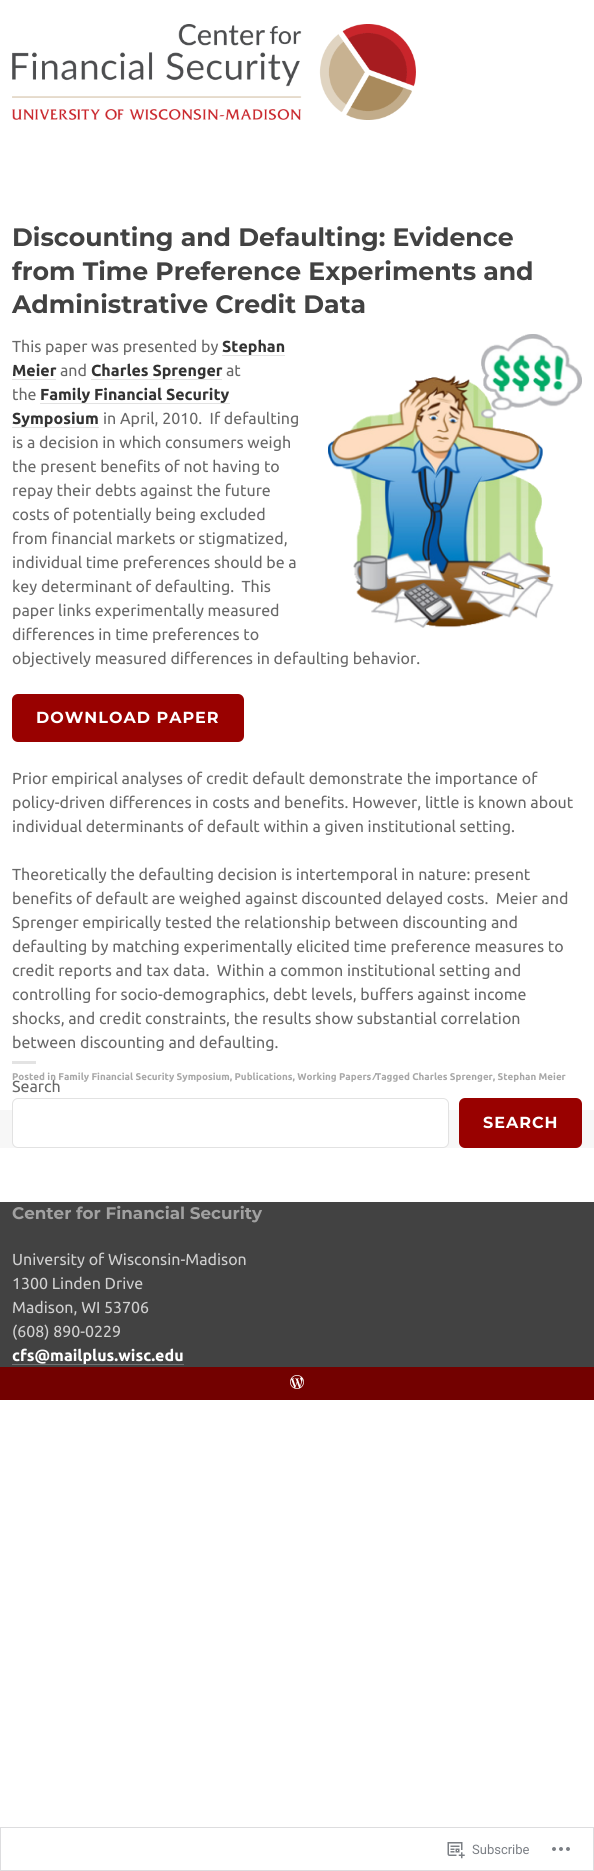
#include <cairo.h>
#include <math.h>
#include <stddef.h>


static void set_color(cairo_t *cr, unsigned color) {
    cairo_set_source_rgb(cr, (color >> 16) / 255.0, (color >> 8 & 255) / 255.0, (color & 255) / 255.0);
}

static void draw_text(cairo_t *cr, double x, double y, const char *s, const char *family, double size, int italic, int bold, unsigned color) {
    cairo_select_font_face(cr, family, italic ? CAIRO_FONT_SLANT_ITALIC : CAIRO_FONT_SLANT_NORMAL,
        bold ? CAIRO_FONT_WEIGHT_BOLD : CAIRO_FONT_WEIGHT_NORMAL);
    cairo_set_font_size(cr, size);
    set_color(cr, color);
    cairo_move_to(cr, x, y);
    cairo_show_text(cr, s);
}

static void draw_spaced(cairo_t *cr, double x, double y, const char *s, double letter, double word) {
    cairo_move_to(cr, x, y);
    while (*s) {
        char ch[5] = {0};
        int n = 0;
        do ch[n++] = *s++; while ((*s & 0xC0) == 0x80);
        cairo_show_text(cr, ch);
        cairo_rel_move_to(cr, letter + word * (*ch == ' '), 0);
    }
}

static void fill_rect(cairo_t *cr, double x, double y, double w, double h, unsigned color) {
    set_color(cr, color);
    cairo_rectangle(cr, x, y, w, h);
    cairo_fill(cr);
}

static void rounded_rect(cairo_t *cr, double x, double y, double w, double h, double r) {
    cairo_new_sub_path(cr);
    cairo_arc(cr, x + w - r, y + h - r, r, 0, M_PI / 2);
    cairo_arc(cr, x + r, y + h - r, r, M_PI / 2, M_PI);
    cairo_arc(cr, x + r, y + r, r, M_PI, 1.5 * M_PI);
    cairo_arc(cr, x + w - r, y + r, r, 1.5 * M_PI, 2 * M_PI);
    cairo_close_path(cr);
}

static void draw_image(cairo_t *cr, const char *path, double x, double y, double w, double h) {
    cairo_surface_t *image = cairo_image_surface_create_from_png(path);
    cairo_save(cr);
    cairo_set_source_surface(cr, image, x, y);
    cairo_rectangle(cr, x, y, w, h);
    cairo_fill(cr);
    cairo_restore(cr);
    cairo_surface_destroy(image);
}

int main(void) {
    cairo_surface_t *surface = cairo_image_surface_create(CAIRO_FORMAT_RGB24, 594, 1871);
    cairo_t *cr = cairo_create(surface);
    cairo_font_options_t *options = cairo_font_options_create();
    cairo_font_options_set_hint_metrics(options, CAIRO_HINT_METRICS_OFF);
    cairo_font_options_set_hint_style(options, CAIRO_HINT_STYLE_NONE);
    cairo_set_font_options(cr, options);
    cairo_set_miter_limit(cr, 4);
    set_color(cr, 0xFFFFFF);
    cairo_paint(cr);
    draw_image(cr, "assets/img1.png", 12, 24, 404, 96);
    draw_text(cr, 12, 246, "Discounting and Defaulting: Evidence", "Montserrat Thin", 25.2, 0, 0, 0x424242);
    draw_text(cr, 12, 280, "from Time Preference Experiments and", "Montserrat Thin", 25.2, 0, 0, 0x424242);
    draw_text(cr, 12, 313, "Administrative Credit Data", "Montserrat Thin", 25.2, 0, 0, 0x424242);
    draw_text(cr, 12, 352, "This paper was presented by", "Ubuntu", 16, 0, 0, 0x686868);
    draw_text(cr, 222, 352, "Stephan", "Ubuntu", 16, 0, 1, 0x333333);
    fill_rect(cr, 222, 355, 63, 1, 0xE2E2E2);
    draw_image(cr, "assets/img2.png", 328, 334, 254, 294);
    draw_text(cr, 12, 376, "Meier", "Ubuntu", 16, 0, 1, 0x333333);
    fill_rect(cr, 12, 379, 44, 1, 0xE2E2E2);
    draw_text(cr, 60, 376, "and", "Ubuntu", 16, 0, 0, 0x686868);
    draw_text(cr, 91, 376, "Charles Sprenger", "Ubuntu", 16, 0, 1, 0x333333);
    fill_rect(cr, 91, 379, 131, 1, 0xE2E2E2);
    draw_text(cr, 226, 376, "at", "Ubuntu", 16, 0, 0, 0x686868);
    draw_text(cr, 12, 400, "the", "Ubuntu", 16, 0, 0, 0x686868);
    draw_text(cr, 40, 400, "Family Financial Security", "Ubuntu", 16, 0, 1, 0x333333);
    fill_rect(cr, 40, 403, 190, 1, 0xE2E2E2);
    draw_text(cr, 12, 424, "Symposium", "Ubuntu", 16, 0, 1, 0x333333);
    fill_rect(cr, 12, 427, 87, 1, 0xE2E2E2);
    draw_text(cr, 103, 424, "in April, 2010.  If defaulting", "Ubuntu", 16, 0, 0, 0x686868);
    draw_text(cr, 12, 448, "is a decision in which consumers weigh", "Ubuntu", 16, 0, 0, 0x686868);
    draw_text(cr, 12, 472, "the present benefits of not having to", "Ubuntu", 16, 0, 0, 0x686868);
    draw_text(cr, 12, 496, "repay their debts against the future", "Ubuntu", 16, 0, 0, 0x686868);
    draw_text(cr, 12, 520, "costs of potentially being excluded", "Ubuntu", 16, 0, 0, 0x686868);
    draw_text(cr, 12, 544, "from financial markets or stigmatized,", "Ubuntu", 16, 0, 0, 0x686868);
    draw_text(cr, 12, 568, "individual time preferences should be a", "Ubuntu", 16, 0, 0, 0x686868);
    draw_text(cr, 12, 592, "key determinant of defaulting.  This", "Ubuntu", 16, 0, 0, 0x686868);
    draw_text(cr, 12, 616, "paper links experimentally measured", "Ubuntu", 16, 0, 0, 0x686868);
    draw_text(cr, 12, 640, "differences in time preferences to", "Ubuntu", 16, 0, 0, 0x686868);
    draw_text(cr, 12, 664, "objectively measured differences in defaulting behavior.", "Ubuntu", 16, 0, 0, 0x686868);
    set_color(cr, 0x990100);
    rounded_rect(cr, 12, 694, 232, 48, 6);
    cairo_fill(cr);
    cairo_select_font_face(cr, "Montserrat Thin", CAIRO_FONT_SLANT_NORMAL, CAIRO_FONT_WEIGHT_NORMAL);
    set_color(cr, 0xFFFFFF);
    draw_spaced(cr, 36, 723, "DOWNLOAD PAPER", 1, 0);
    draw_text(cr, 12, 784, "Prior empirical analyses of credit default demonstrate the importance of", "Ubuntu", 16, 0, 0, 0x686868);
    draw_text(cr, 12, 808, "policy-driven differences in costs and benefits. However, little is known about", "Ubuntu", 16, 0, 0, 0x686868);
    draw_text(cr, 12, 832, "individual determinants of default within a given institutional setting.", "Ubuntu", 16, 0, 0, 0x686868);
    draw_text(cr, 12, 880, "Theoretically the defaulting decision is intertemporal in nature: present", "Ubuntu", 16, 0, 0, 0x686868);
    draw_text(cr, 12, 904, "benefits of default are weighed against discounted delayed costs.  Meier and", "Ubuntu", 16, 0, 0, 0x686868);
    draw_text(cr, 12, 928, "Sprenger empirically tested the relationship between discounting and", "Ubuntu", 16, 0, 0, 0x686868);
    draw_text(cr, 12, 952, "defaulting by matching experimentally elicited time preference measures to", "Ubuntu", 16, 0, 0, 0x686868);
    draw_text(cr, 12, 976, "credit reports and tax data.  Within a common institutional setting and", "Ubuntu", 16, 0, 0, 0x686868);
    draw_text(cr, 12, 1000, "controlling for socio-demographics, debt levels, buffers against income", "Ubuntu", 16, 0, 0, 0x686868);
    draw_text(cr, 12, 1024, "shocks, and credit constraints, the results show substantial correlation", "Ubuntu", 16, 0, 0, 0x686868);
    draw_text(cr, 12, 1048, "between discounting and defaulting.", "Ubuntu", 16, 0, 0, 0x686868);
    fill_rect(cr, 12, 1061, 24, 3, 0xE3E3E3);
    draw_text(cr, 12, 1080, "Posted in Family Financial Security Symposium, Publications, Working Papers ⁄Tagged Charles Sprenger, Stephan Meier", "Ubuntu", 9.8, 0, 1, 0xA8A8A8);
    fill_rect(cr, 0, 1110, 594, 38, 0xF7F7F7);
    draw_text(cr, 12, 1092, "Search", "Ubuntu", 16, 0, 0, 0x686868);
    set_color(cr, 0xFFFFFF);
    rounded_rect(cr, 12.5, 1098.5, 436, 49, 5.5);
    cairo_fill_preserve(cr);
    set_color(cr, 0xE2E2E2);
    cairo_set_line_width(cr, 1);
    cairo_stroke(cr);
    set_color(cr, 0x990100);
    rounded_rect(cr, 459, 1098, 123, 50, 6);
    cairo_fill(cr);
    cairo_select_font_face(cr, "Montserrat Thin", CAIRO_FONT_SLANT_NORMAL, CAIRO_FONT_WEIGHT_NORMAL);
    set_color(cr, 0xFFFFFF);
    draw_spaced(cr, 483, 1128, "SEARCH", 1, 0);
    fill_rect(cr, 0, 1202, 594, 165, 0x424242);
    draw_text(cr, 12, 1219, "Center for Financial Security", "Montserrat Thin", 16.75, 0, 0, 0xA1A1A1);
    draw_text(cr, 12, 1265, "University of Wisconsin-Madison", "Ubuntu", 16, 0, 0, 0xD0D0D0);
    draw_text(cr, 12, 1289, "1300 Linden Drive", "Ubuntu", 16, 0, 0, 0xD0D0D0);
    draw_text(cr, 12, 1313, "Madison, WI 53706", "Ubuntu", 16, 0, 0, 0xD0D0D0);
    draw_text(cr, 12, 1337, "(608) 890-0229", "Ubuntu", 16, 0, 0, 0xD0D0D0);
    draw_text(cr, 12, 1361, "cfs@mailplus.wisc.edu", "Ubuntu", 16, 0, 1, 0xFFFFFF);
    fill_rect(cr, 12, 1364, 172, 1, 0x717171);
    fill_rect(cr, 0, 1367, 594, 33, 0x730100);
    draw_image(cr, "assets/img3.png", 290, 1375, 14, 14);
    cairo_rectangle(cr, 0.5, 1827.5, 593, 43);
    set_color(cr, 0xDDDDDF);
    cairo_stroke(cr);
    draw_image(cr, "assets/img4.png", 447, 1842, 18, 17);
    draw_text(cr, 472, 1854, "Subscribe", "Roboto", 13, 0, 0, 0x7B7F85);
    draw_image(cr, "assets/img5.png", 552, 1847, 18, 4);
    cairo_surface_write_to_png(surface, "output.png");
    cairo_font_options_destroy(options);
    cairo_destroy(cr);
    cairo_surface_destroy(surface);
    return 0;
}
